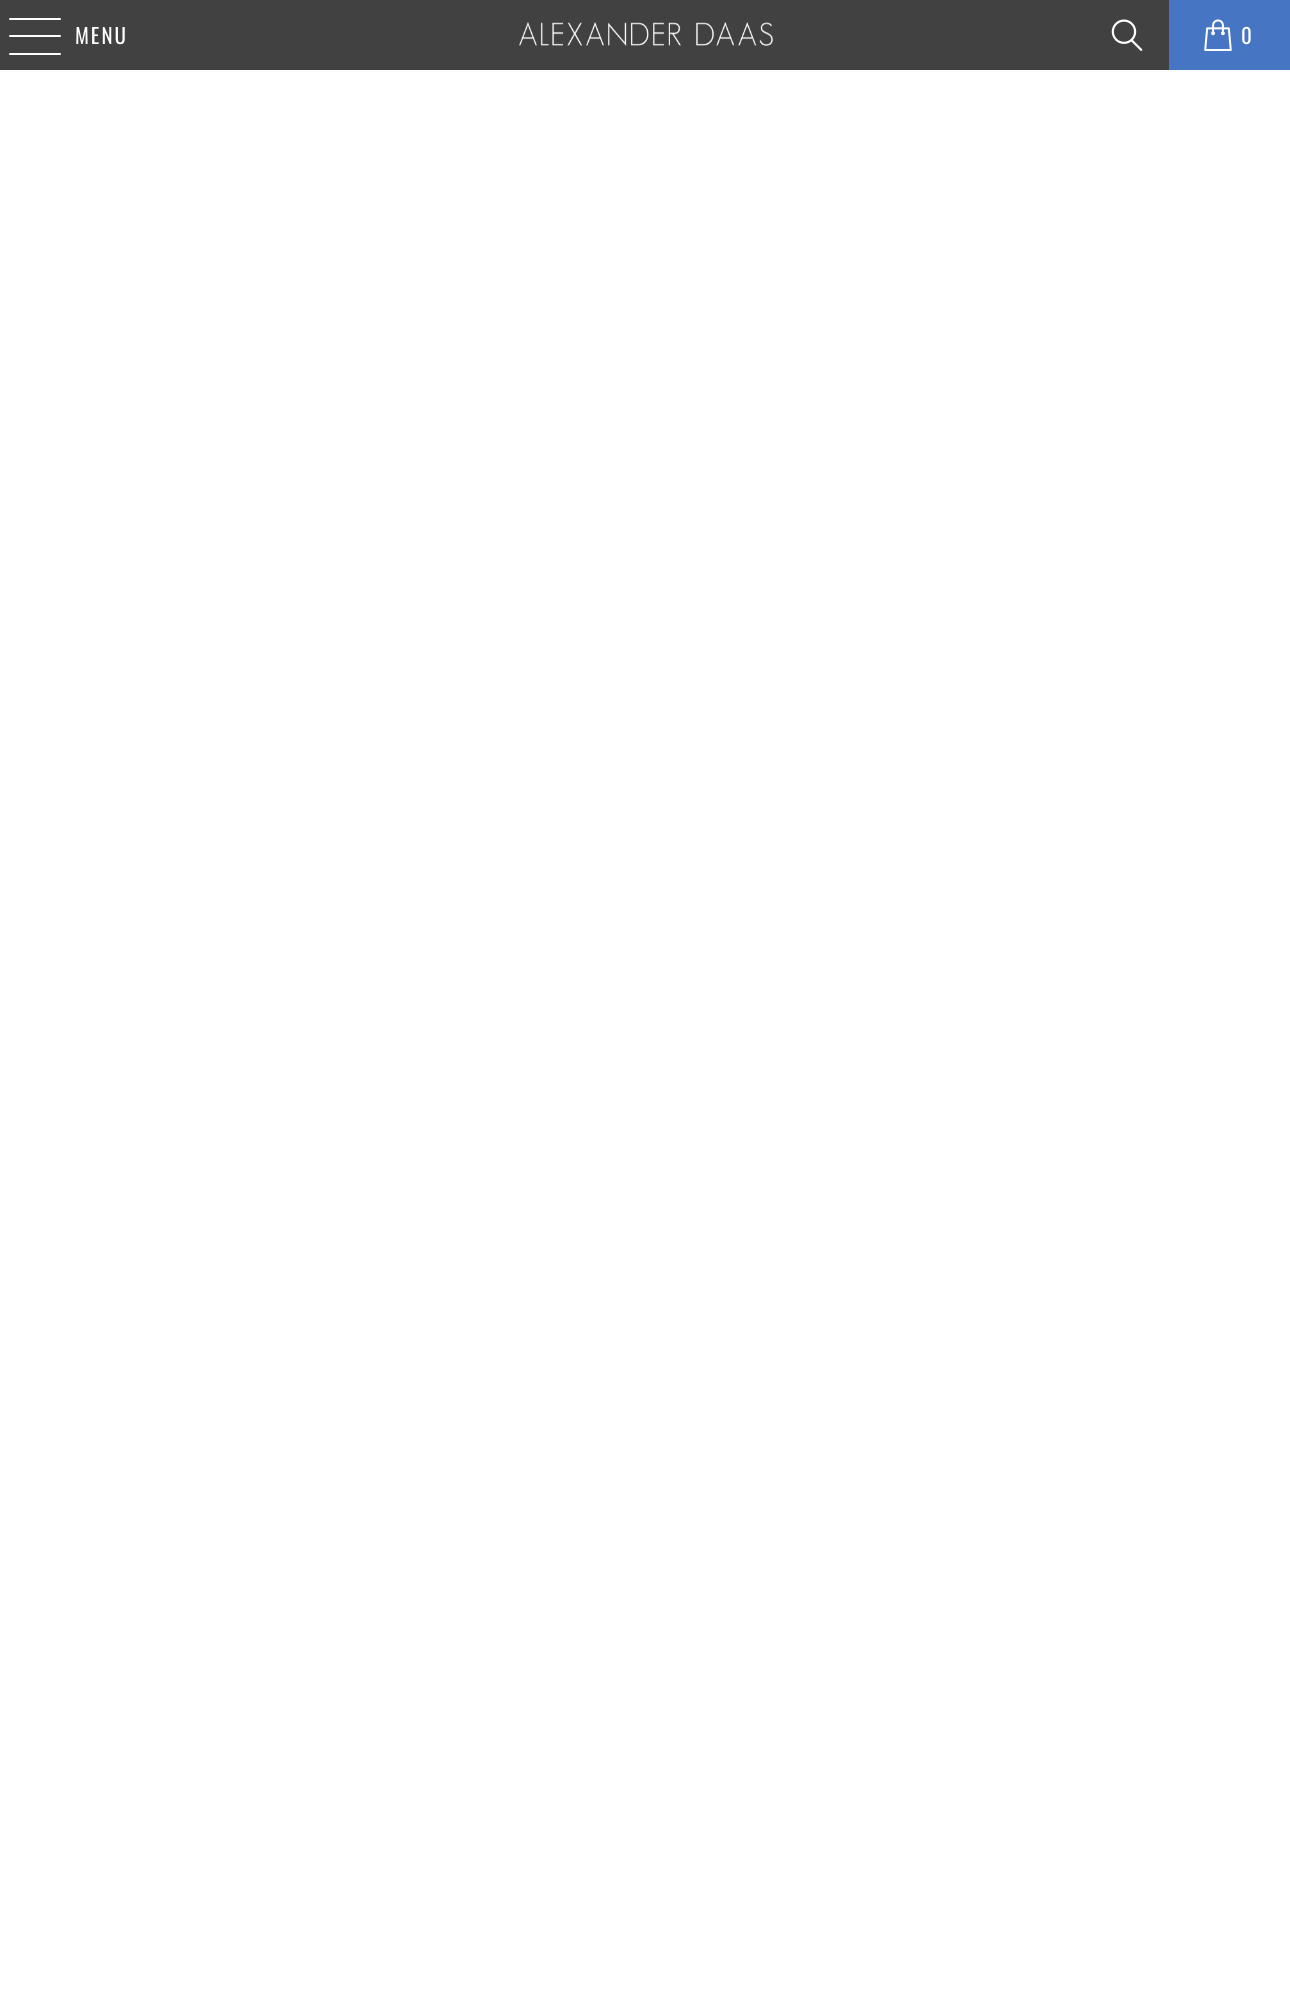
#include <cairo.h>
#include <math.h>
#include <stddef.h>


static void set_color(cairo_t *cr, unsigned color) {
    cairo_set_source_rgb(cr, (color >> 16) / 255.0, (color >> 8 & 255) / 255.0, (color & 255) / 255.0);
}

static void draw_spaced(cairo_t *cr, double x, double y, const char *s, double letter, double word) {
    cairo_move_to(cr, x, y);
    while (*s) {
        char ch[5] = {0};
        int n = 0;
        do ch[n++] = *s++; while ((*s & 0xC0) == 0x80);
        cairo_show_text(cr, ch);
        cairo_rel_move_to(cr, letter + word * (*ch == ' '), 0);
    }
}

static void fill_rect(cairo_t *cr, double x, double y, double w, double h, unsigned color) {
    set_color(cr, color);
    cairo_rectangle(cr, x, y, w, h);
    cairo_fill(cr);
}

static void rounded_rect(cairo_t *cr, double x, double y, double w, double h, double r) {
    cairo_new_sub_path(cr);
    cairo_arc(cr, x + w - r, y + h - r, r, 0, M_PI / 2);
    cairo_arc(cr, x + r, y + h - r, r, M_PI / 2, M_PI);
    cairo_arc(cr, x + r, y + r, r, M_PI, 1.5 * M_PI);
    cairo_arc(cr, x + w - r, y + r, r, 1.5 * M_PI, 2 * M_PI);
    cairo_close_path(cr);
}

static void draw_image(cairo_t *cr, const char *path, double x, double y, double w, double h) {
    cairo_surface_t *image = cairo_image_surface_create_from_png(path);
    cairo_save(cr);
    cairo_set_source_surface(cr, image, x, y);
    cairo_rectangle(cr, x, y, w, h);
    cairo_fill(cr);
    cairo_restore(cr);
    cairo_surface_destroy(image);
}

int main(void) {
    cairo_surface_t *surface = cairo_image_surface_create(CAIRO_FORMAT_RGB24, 1290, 1994);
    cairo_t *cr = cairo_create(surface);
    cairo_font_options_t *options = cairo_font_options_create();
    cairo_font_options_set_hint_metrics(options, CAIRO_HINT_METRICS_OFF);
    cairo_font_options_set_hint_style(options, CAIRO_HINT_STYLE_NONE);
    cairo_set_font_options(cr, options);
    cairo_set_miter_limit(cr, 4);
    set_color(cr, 0xFFFFFF);
    cairo_paint(cr);
    fill_rect(cr, 0, 0, 1169, 70, 0x414141);
    set_color(cr, 0xFFFFFF);
    rounded_rect(cr, 9, 18, 52, 2, 1);
    cairo_fill(cr);
    rounded_rect(cr, 9, 35, 52, 2, 1);
    cairo_fill(cr);
    rounded_rect(cr, 9, 53, 52, 2, 1);
    cairo_fill(cr);
    cairo_select_font_face(cr, "Oswald", CAIRO_FONT_SLANT_NORMAL, CAIRO_FONT_WEIGHT_NORMAL);
    cairo_set_font_size(cr, 21);
    draw_spaced(cr, 75, 44, "MENU", 2, 0);
    draw_image(cr, "assets/img1.png", 519, 22, 254, 24);
    draw_image(cr, "assets/img2.png", 1111, 19, 32, 32);
    fill_rect(cr, 1169, 0, 121, 70, 0x4676C3);
    draw_image(cr, "assets/img3.png", 1204, 19, 28, 32);
    set_color(cr, 0xFFFFFF);
    draw_spaced(cr, 1241, 44, "0", 2, 0);
    cairo_surface_write_to_png(surface, "output.png");
    cairo_font_options_destroy(options);
    cairo_destroy(cr);
    cairo_surface_destroy(surface);
    return 0;
}
